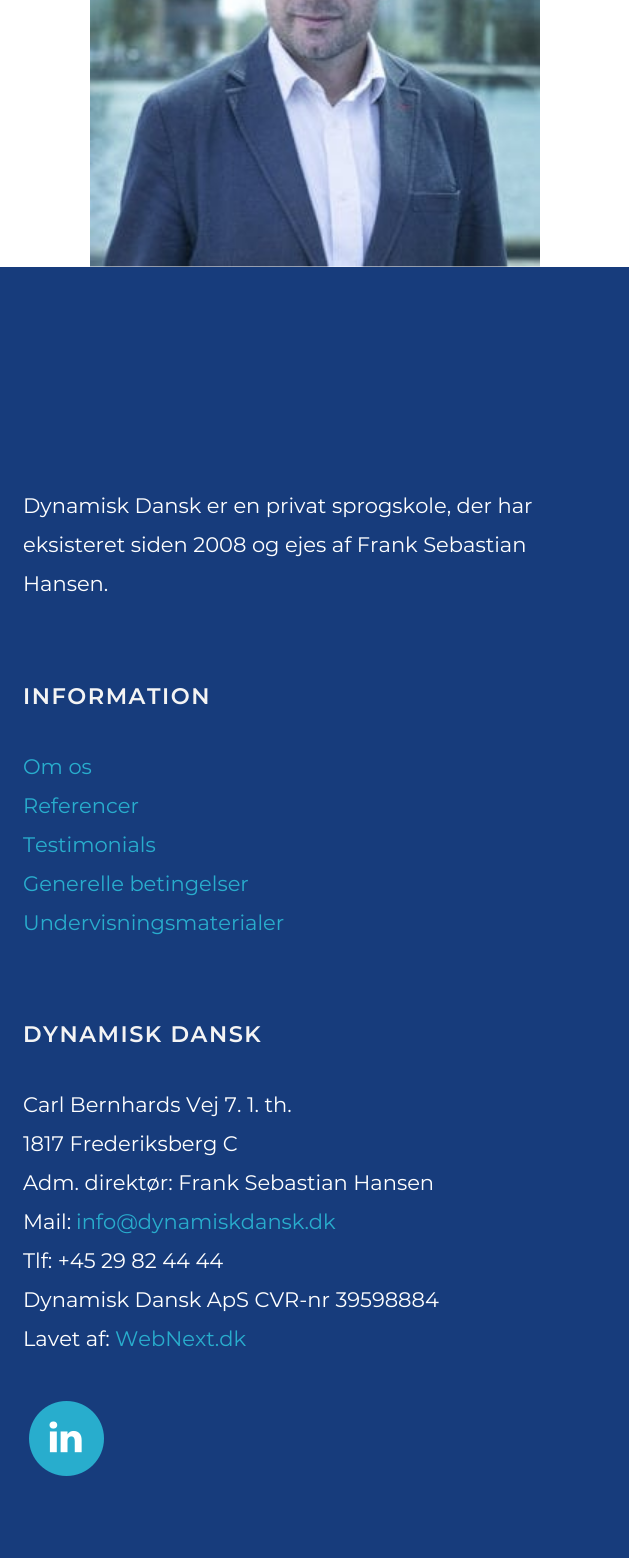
#include <cairo.h>
#include <math.h>
#include <stddef.h>


static void set_color(cairo_t *cr, unsigned color) {
    cairo_set_source_rgb(cr, (color >> 16) / 255.0, (color >> 8 & 255) / 255.0, (color & 255) / 255.0);
}

static void draw_text(cairo_t *cr, double x, double y, const char *s, const char *family, double size, int italic, int bold, unsigned color) {
    cairo_select_font_face(cr, family, italic ? CAIRO_FONT_SLANT_ITALIC : CAIRO_FONT_SLANT_NORMAL,
        bold ? CAIRO_FONT_WEIGHT_BOLD : CAIRO_FONT_WEIGHT_NORMAL);
    cairo_set_font_size(cr, size);
    set_color(cr, color);
    cairo_move_to(cr, x, y);
    cairo_show_text(cr, s);
}

static void draw_spaced(cairo_t *cr, double x, double y, const char *s, double letter, double word) {
    cairo_move_to(cr, x, y);
    while (*s) {
        char ch[5] = {0};
        int n = 0;
        do ch[n++] = *s++; while ((*s & 0xC0) == 0x80);
        cairo_show_text(cr, ch);
        cairo_rel_move_to(cr, letter + word * (*ch == ' '), 0);
    }
}

static void fill_rect(cairo_t *cr, double x, double y, double w, double h, unsigned color) {
    set_color(cr, color);
    cairo_rectangle(cr, x, y, w, h);
    cairo_fill(cr);
}

static void draw_image(cairo_t *cr, const char *path, double x, double y, double w, double h) {
    cairo_surface_t *image = cairo_image_surface_create_from_png(path);
    cairo_save(cr);
    cairo_set_source_surface(cr, image, x, y);
    cairo_rectangle(cr, x, y, w, h);
    cairo_fill(cr);
    cairo_restore(cr);
    cairo_surface_destroy(image);
}

int main(void) {
    cairo_surface_t *surface = cairo_image_surface_create(CAIRO_FORMAT_RGB24, 629, 1558);
    cairo_t *cr = cairo_create(surface);
    cairo_font_options_t *options = cairo_font_options_create();
    cairo_font_options_set_hint_metrics(options, CAIRO_HINT_METRICS_OFF);
    cairo_font_options_set_hint_style(options, CAIRO_HINT_STYLE_NONE);
    cairo_set_font_options(cr, options);
    cairo_set_miter_limit(cr, 4);
    set_color(cr, 0xFFFFFF);
    cairo_paint(cr);
    draw_image(cr, "assets/img1.png", 90, 0, 450, 267);
    fill_rect(cr, 0, 267, 629, 1291, 0x173C7C);
    draw_text(cr, 23, 513, "Dynamisk Dansk er en privat sprogskole, der har", "Montserrat", 21, 0, 0, 0xFFFFFF);
    draw_text(cr, 23, 552, "eksisteret siden 2008 og ejes af Frank Sebastian", "Montserrat", 21, 0, 0, 0xFFFFFF);
    draw_text(cr, 23, 591, "Hansen.", "Montserrat", 21, 0, 0, 0xFFFFFF);
    cairo_select_font_face(cr, "Montserrat SemiBold", CAIRO_FONT_SLANT_NORMAL, CAIRO_FONT_WEIGHT_NORMAL);
    cairo_set_font_size(cr, 22.5);
    set_color(cr, 0xF4F4F4);
    draw_spaced(cr, 23, 704, "INFORMATION", 1.5, 0);
    draw_text(cr, 23, 774, "Om os", "Montserrat", 21, 0, 0, 0x28ADCD);
    draw_text(cr, 23, 813, "Referencer", "Montserrat", 21, 0, 0, 0x28ADCD);
    draw_text(cr, 23, 852, "Testimonials", "Montserrat", 21, 0, 0, 0x28ADCD);
    draw_text(cr, 23, 891, "Generelle betingelser", "Montserrat", 21, 0, 0, 0x28ADCD);
    draw_text(cr, 23, 930, "Undervisningsmaterialer", "Montserrat", 21, 0, 0, 0x28ADCD);
    cairo_select_font_face(cr, "Montserrat SemiBold", CAIRO_FONT_SLANT_NORMAL, CAIRO_FONT_WEIGHT_NORMAL);
    cairo_set_font_size(cr, 22.5);
    set_color(cr, 0xF4F4F4);
    draw_spaced(cr, 23, 1042, "DYNAMISK DANSK", 1.5, 0);
    draw_text(cr, 23, 1112, "Carl Bernhards Vej 7. 1. th.", "Montserrat", 21, 0, 0, 0xFFFFFF);
    draw_text(cr, 23, 1151, "1817 Frederiksberg C", "Montserrat", 21, 0, 0, 0xFFFFFF);
    draw_text(cr, 23, 1190, "Adm. direktør: Frank Sebastian Hansen", "Montserrat", 21, 0, 0, 0xFFFFFF);
    draw_text(cr, 23, 1229, "Mail:", "Montserrat", 21, 0, 0, 0xFFFFFF);
    draw_text(cr, 76, 1229, "info@dynamiskdansk.dk", "Montserrat", 21, 0, 0, 0x28ADCD);
    draw_text(cr, 23, 1268, "Tlf: +45 29 82 44 44", "Montserrat", 21, 0, 0, 0xFFFFFF);
    draw_text(cr, 23, 1307, "Dynamisk Dansk ApS CVR-nr 39598884", "Montserrat", 21, 0, 0, 0xFFFFFF);
    draw_text(cr, 23, 1346, "Lavet af:", "Montserrat", 21, 0, 0, 0xFFFFFF);
    draw_text(cr, 115, 1346, "WebNext.dk", "Montserrat", 21, 0, 0, 0x28ADCD);
    cairo_new_path(cr);
    cairo_arc(cr, 66.5, 1438.5, 37.5, 0, 2 * M_PI);
    cairo_fill(cr);
    draw_image(cr, "assets/img2.png", 49, 1421, 33, 32);
    cairo_surface_write_to_png(surface, "output.png");
    cairo_font_options_destroy(options);
    cairo_destroy(cr);
    cairo_surface_destroy(surface);
    return 0;
}
